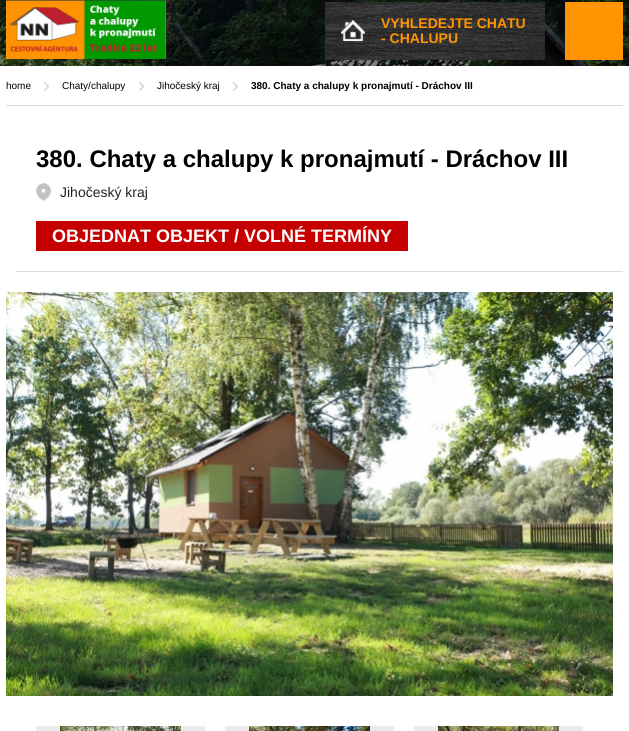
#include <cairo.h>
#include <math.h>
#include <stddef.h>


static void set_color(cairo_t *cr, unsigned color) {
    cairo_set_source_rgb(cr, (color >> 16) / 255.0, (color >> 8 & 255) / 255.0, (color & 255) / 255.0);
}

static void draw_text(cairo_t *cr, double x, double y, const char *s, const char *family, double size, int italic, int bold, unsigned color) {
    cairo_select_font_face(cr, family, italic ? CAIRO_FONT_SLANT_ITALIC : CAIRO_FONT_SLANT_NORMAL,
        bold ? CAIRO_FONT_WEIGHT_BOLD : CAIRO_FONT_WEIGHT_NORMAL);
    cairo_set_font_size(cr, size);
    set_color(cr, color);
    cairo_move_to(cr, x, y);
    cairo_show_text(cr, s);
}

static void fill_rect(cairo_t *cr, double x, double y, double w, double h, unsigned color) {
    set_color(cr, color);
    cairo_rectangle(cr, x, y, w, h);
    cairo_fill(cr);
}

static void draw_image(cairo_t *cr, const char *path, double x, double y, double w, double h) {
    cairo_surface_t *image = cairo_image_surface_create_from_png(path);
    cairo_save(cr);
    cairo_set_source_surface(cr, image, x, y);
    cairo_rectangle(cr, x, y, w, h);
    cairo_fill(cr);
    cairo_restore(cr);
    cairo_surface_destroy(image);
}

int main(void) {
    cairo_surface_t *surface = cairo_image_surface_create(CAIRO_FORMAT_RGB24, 629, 731);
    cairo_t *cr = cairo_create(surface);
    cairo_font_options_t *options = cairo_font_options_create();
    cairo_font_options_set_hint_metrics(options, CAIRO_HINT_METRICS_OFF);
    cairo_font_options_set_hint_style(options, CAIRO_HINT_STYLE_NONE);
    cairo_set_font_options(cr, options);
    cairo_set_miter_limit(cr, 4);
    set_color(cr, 0xFFFFFF);
    cairo_paint(cr);
    draw_image(cr, "assets/img1.png", 0, 0, 629, 66);
    draw_image(cr, "assets/img2.png", 6, 0, 160, 59);
    draw_image(cr, "assets/img3.png", 325, 2, 220, 58);
    draw_image(cr, "assets/img4.png", 341, 20, 24, 21);
    draw_text(cr, 381, 28, "VYHLEDEJTE CHATU", "Liberation Sans", 14, 0, 1, 0xFF9302);
    draw_text(cr, 381, 43, "- CHALUPU", "Liberation Sans", 14, 0, 1, 0xFF9302);
    fill_rect(cr, 565, 2, 58, 58, 0xFF9302);
    fill_rect(cr, 6, 105, 617, 1, 0xDADADA);
    draw_text(cr, 6, 89, "home", "Liberation Sans", 10, 0, 0, 0x000000);
    draw_image(cr, "assets/img5.png", 44, 82, 5, 9);
    draw_text(cr, 62, 89, "Chaty/chalupy", "Liberation Sans", 10, 0, 0, 0x000000);
    draw_image(cr, "assets/img5.png", 139, 82, 5, 9);
    draw_text(cr, 157, 89, "Jihočeský kraj", "Liberation Sans", 10, 0, 0, 0x000000);
    draw_image(cr, "assets/img5.png", 233, 82, 5, 9);
    draw_text(cr, 251, 89, "380. Chaty a chalupy k pronajmutí - Dráchov III", "Liberation Sans", 10, 0, 1, 0x000000);
    fill_rect(cr, 16, 271, 607, 1, 0xDADADA);
    draw_text(cr, 36, 167, "380. Chaty a chalupy k pronajmutí - Dráchov III", "Liberation Sans", 24, 0, 1, 0x000000);
    draw_image(cr, "assets/img6.png", 36, 183, 15, 18);
    draw_text(cr, 60, 197, "Jihočeský kraj", "Liberation Sans", 14, 0, 0, 0x222222);
    fill_rect(cr, 36, 221, 372, 30, 0xC60001);
    draw_text(cr, 52, 242, "OBJEDNAT OBJEKT / VOLNÉ TERMÍNY", "Liberation Sans", 18, 0, 1, 0xFFFFFF);
    draw_image(cr, "assets/img7.png", 6, 292, 607, 404);
    fill_rect(cr, 36, 726, 169, 5, 0xEBEBEB);
    draw_image(cr, "assets/img8.png", 60, 726, 121, 5);
    fill_rect(cr, 225, 726, 169, 5, 0xEBEBEB);
    draw_image(cr, "assets/img9.png", 249, 726, 121, 5);
    fill_rect(cr, 414, 726, 169, 5, 0xEBEBEB);
    draw_image(cr, "assets/img10.png", 438, 726, 121, 5);
    cairo_surface_write_to_png(surface, "output.png");
    cairo_font_options_destroy(options);
    cairo_destroy(cr);
    cairo_surface_destroy(surface);
    return 0;
}
